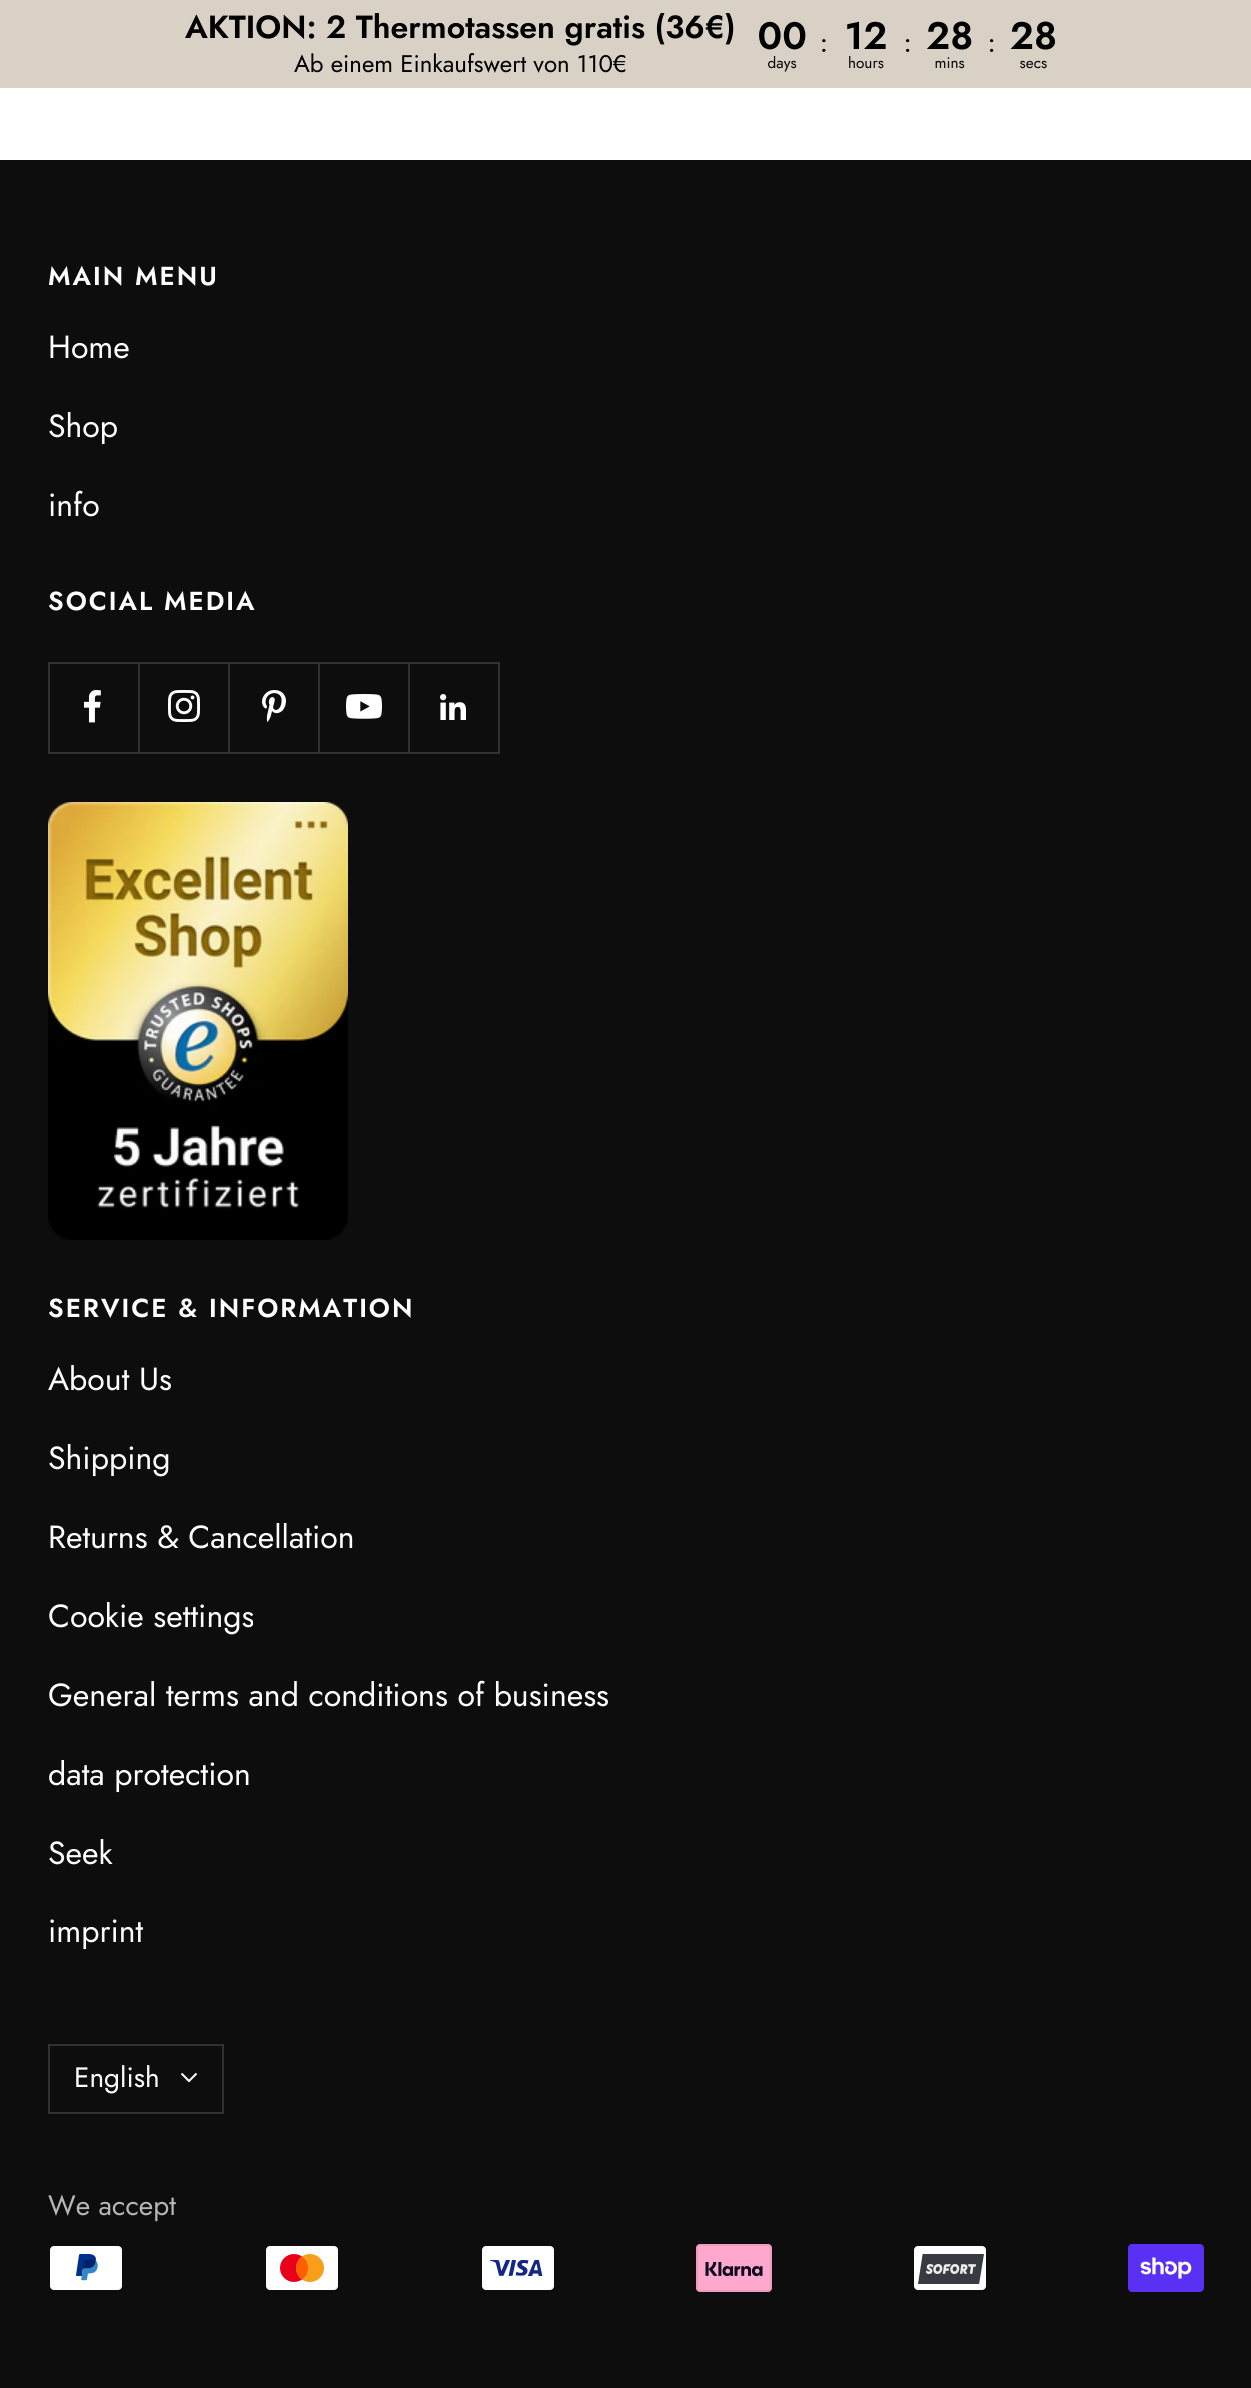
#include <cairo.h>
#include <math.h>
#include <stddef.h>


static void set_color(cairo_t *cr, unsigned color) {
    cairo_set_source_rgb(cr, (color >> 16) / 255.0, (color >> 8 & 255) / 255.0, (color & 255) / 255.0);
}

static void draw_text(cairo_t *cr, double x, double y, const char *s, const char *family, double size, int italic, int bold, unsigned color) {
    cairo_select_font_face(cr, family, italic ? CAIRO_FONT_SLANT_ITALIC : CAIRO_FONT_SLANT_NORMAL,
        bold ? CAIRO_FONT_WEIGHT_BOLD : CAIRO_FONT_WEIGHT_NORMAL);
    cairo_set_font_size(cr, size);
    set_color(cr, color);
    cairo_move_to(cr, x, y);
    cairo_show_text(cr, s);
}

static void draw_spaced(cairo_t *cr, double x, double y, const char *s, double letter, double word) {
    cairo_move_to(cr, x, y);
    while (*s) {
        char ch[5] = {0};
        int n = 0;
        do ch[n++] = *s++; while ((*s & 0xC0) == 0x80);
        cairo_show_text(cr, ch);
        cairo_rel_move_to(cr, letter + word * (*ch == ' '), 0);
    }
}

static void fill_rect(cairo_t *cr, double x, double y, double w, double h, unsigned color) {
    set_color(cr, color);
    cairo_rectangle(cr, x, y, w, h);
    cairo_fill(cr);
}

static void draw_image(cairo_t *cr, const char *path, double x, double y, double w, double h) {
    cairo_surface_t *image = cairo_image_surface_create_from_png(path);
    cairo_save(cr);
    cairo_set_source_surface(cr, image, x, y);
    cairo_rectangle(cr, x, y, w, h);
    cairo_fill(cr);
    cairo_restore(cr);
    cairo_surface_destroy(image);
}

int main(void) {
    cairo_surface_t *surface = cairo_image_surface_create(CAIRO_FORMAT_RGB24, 1251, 2388);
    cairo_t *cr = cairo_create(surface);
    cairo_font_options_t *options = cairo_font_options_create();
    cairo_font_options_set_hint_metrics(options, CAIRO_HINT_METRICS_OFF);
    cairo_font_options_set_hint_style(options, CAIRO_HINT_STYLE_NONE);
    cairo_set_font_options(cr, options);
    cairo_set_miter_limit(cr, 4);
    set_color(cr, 0xFFFFFF);
    cairo_paint(cr);
    fill_rect(cr, 0, 0, 1251, 88, 0xD9D1C6);
    draw_text(cr, 185, 38, "AKTION: 2 Thermotassen gratis (36€)", "Jost SemiBold", 32, 0, 0, 0x000000);
    draw_text(cr, 294, 72, "Ab einem Einkaufswert von 110€", "Jost", 24, 0, 0, 0x000000);
    draw_image(cr, "assets/img1.png", 759, 21, 297, 51);
    fill_rect(cr, 0, 160, 1251, 2228, 0x0D0D0D);
    cairo_select_font_face(cr, "Jost SemiBold", CAIRO_FONT_SLANT_NORMAL, CAIRO_FONT_WEIGHT_NORMAL);
    cairo_set_font_size(cr, 26);
    set_color(cr, 0xFFFFFF);
    draw_spaced(cr, 48, 285, "MAIN MENU", 2, 0);
    draw_text(cr, 48, 358, "Home", "Jost", 32, 0, 0, 0xFFFFFF);
    draw_text(cr, 48, 437, "Shop", "Jost", 32, 0, 0, 0xFFFFFF);
    draw_text(cr, 48, 516, "info", "Jost", 32, 0, 0, 0xFFFFFF);
    cairo_select_font_face(cr, "Jost SemiBold", CAIRO_FONT_SLANT_NORMAL, CAIRO_FONT_WEIGHT_NORMAL);
    cairo_set_font_size(cr, 26);
    draw_spaced(cr, 48, 610, "SOCIAL MEDIA", 2, 0);
    set_color(cr, 0x313131);
    cairo_new_path(cr);
    cairo_move_to(cr, 50, 752);
    cairo_line_to(cr, 50, 754);
    cairo_line_to(cr, 140, 754);
    cairo_line_to(cr, 140, 664);
    cairo_line_to(cr, 138, 664);
    cairo_line_to(cr, 138, 752);
    cairo_close_path(cr);
    cairo_fill(cr);
    fill_rect(cr, 48, 752, 2, 2, 0x313131);
    fill_rect(cr, 48, 662, 92, 2, 0x313131);
    fill_rect(cr, 48, 662, 2, 90, 0x313131);
    draw_image(cr, "assets/img2.png", 84, 690, 17, 33);
    cairo_new_path(cr);
    cairo_move_to(cr, 140, 752);
    cairo_line_to(cr, 140, 754);
    cairo_line_to(cr, 230, 754);
    cairo_line_to(cr, 230, 664);
    cairo_line_to(cr, 228, 664);
    cairo_line_to(cr, 228, 752);
    cairo_close_path(cr);
    cairo_fill(cr);
    fill_rect(cr, 138, 662, 92, 2, 0x313131);
    draw_image(cr, "assets/img3.png", 168, 690, 32, 32);
    cairo_new_path(cr);
    cairo_move_to(cr, 230, 752);
    cairo_line_to(cr, 230, 754);
    cairo_line_to(cr, 320, 754);
    cairo_line_to(cr, 320, 664);
    cairo_line_to(cr, 318, 664);
    cairo_line_to(cr, 318, 752);
    cairo_close_path(cr);
    cairo_fill(cr);
    fill_rect(cr, 228, 662, 92, 2, 0x313131);
    draw_image(cr, "assets/img4.png", 262, 690, 24, 32);
    cairo_new_path(cr);
    cairo_move_to(cr, 320, 752);
    cairo_line_to(cr, 320, 754);
    cairo_line_to(cr, 410, 754);
    cairo_line_to(cr, 410, 664);
    cairo_line_to(cr, 408, 664);
    cairo_line_to(cr, 408, 752);
    cairo_close_path(cr);
    cairo_fill(cr);
    fill_rect(cr, 318, 662, 92, 2, 0x313131);
    draw_image(cr, "assets/img5.png", 346, 694, 36, 25);
    cairo_new_path(cr);
    cairo_move_to(cr, 410, 752);
    cairo_line_to(cr, 410, 754);
    cairo_line_to(cr, 500, 754);
    cairo_line_to(cr, 500, 664);
    cairo_line_to(cr, 498, 664);
    cairo_line_to(cr, 498, 752);
    cairo_close_path(cr);
    cairo_fill(cr);
    fill_rect(cr, 408, 662, 92, 2, 0x313131);
    draw_image(cr, "assets/img6.png", 440, 694, 26, 26);
    draw_image(cr, "assets/img7.png", 48, 802, 300, 438);
    set_color(cr, 0xFFFFFF);
    draw_spaced(cr, 48, 1317, "SERVICE & INFORMATION", 2, 0);
    draw_text(cr, 48, 1390, "About Us", "Jost", 32, 0, 0, 0xFFFFFF);
    draw_text(cr, 48, 1469, "Shipping", "Jost", 32, 0, 0, 0xFFFFFF);
    draw_text(cr, 48, 1548, "Returns & Cancellation", "Jost", 32, 0, 0, 0xFFFFFF);
    draw_text(cr, 48, 1627, "Cookie settings", "Jost", 32, 0, 0, 0xFFFFFF);
    draw_text(cr, 48, 1706, "General terms and conditions of business", "Jost", 32, 0, 0, 0xFFFFFF);
    draw_text(cr, 48, 1785, "data protection", "Jost", 32, 0, 0, 0xFFFFFF);
    draw_text(cr, 48, 1864, "Seek", "Jost", 32, 0, 0, 0xFFFFFF);
    draw_text(cr, 48, 1942, "imprint", "Jost", 32, 0, 0, 0xFFFFFF);
    cairo_rectangle(cr, 49, 2045, 174, 68);
    set_color(cr, 0x313131);
    cairo_stroke(cr);
    draw_text(cr, 74, 2087, "English", "Jost", 28, 0, 0, 0xFFFFFF);
    cairo_new_path(cr);
    cairo_move_to(cr, 181.5, 2073.5);
    cairo_line_to(cr, 189, 2081);
    cairo_line_to(cr, 196.5, 2073.5);
    cairo_stroke(cr);
    draw_text(cr, 48, 2215, "We accept", "Jost", 28, 0, 0, 0xB6B6B6);
    draw_image(cr, "assets/img8.png", 50, 2246, 72, 44);
    draw_image(cr, "assets/img9.png", 266, 2246, 72, 44);
    draw_image(cr, "assets/img10.png", 482, 2246, 72, 44);
    draw_image(cr, "assets/img11.png", 696, 2244, 76, 48);
    draw_image(cr, "assets/img12.png", 914, 2246, 72, 44);
    draw_image(cr, "assets/img13.png", 1128, 2244, 76, 48);
    cairo_surface_write_to_png(surface, "output.png");
    cairo_font_options_destroy(options);
    cairo_destroy(cr);
    cairo_surface_destroy(surface);
    return 0;
}
